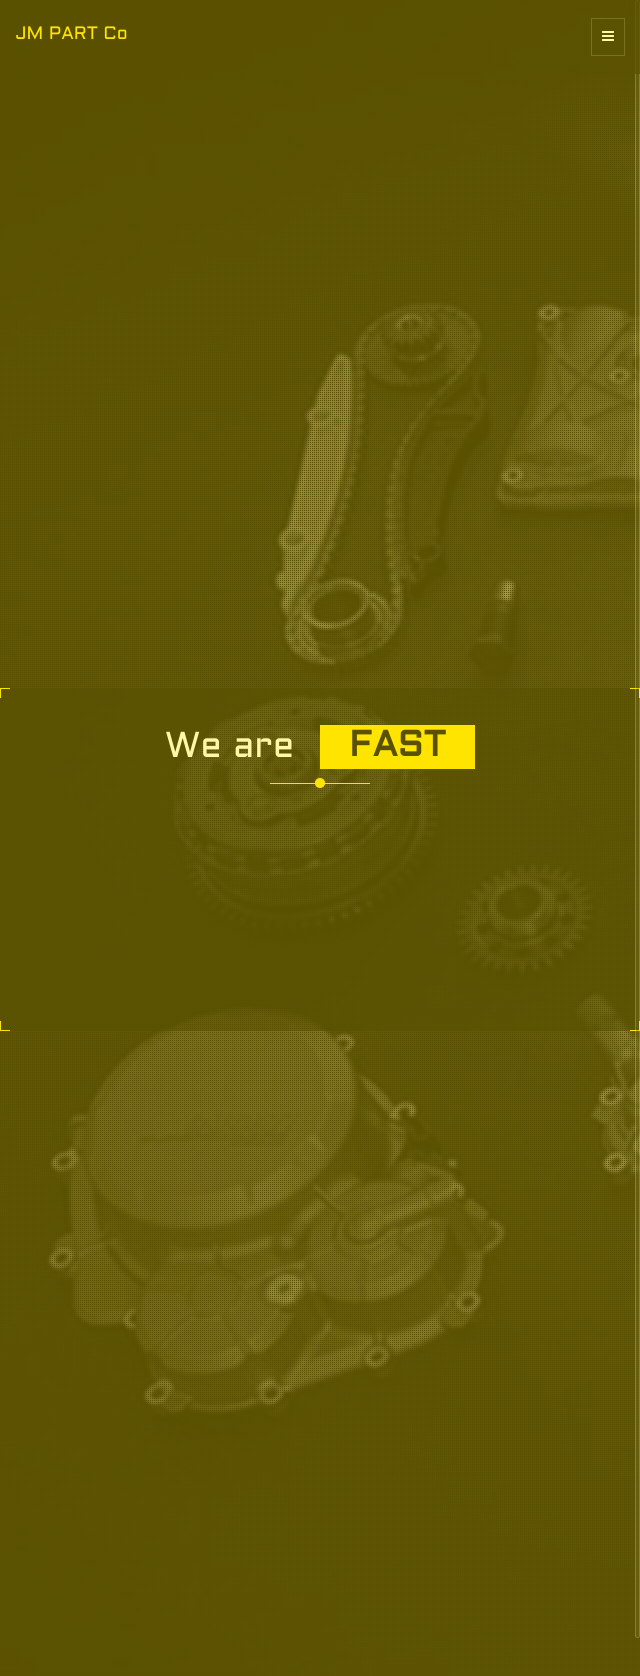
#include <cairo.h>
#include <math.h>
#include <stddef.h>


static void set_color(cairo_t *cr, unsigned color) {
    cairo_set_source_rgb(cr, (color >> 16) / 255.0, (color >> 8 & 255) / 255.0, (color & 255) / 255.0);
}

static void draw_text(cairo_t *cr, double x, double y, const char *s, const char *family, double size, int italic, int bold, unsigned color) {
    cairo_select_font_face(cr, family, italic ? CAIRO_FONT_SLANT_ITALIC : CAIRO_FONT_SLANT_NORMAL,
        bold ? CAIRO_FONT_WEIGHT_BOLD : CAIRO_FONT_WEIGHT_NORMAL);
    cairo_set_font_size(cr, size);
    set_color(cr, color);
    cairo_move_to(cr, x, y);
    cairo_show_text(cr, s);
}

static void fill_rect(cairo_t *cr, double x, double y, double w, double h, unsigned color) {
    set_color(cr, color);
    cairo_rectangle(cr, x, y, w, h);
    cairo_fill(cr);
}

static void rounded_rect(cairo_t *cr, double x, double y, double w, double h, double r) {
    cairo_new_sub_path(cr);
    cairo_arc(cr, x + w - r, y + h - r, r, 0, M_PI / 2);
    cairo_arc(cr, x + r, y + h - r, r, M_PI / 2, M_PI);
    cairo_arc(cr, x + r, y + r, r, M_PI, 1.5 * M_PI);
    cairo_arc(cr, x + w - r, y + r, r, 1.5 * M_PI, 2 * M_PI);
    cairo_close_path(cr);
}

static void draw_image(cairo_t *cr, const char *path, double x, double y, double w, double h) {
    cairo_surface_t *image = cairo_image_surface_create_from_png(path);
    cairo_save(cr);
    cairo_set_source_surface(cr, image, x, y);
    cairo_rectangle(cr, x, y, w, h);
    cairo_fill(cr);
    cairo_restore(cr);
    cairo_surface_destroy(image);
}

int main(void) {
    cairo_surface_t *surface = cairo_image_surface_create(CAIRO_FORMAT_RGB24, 640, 1676);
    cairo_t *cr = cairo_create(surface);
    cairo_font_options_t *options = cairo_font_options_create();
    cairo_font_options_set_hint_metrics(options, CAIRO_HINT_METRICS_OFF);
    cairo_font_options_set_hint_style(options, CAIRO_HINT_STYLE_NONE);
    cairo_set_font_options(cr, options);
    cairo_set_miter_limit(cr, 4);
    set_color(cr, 0xFFFFFF);
    cairo_paint(cr);
    draw_image(cr, "assets/img1.png", 0, 0, 640, 1676);
    draw_image(cr, "assets/img2.png", 0, 0, 640, 1676);
    cairo_set_source_rgba(cr, 0.349, 0.314, 0, 0.6);
    cairo_rectangle(cr, 0, 688, 640, 121);
    cairo_fill(cr);
    fill_rect(cr, 630, 688, 10, 1, 0xFFE400);
    cairo_set_source_rgba(cr, 0.349, 0.314, 0, 0.6);
    cairo_rectangle(cr, 0, 809, 640, 222);
    cairo_fill(cr);
    fill_rect(cr, 639, 1021, 1, 10, 0xFFE400);
    fill_rect(cr, 630, 1030, 10, 1, 0xFFE400);
    cairo_set_source_rgba(cr, 0.518, 0.482, 0.169, 0.27);
    rounded_rect(cr, 636, 1, 3, 1636, 1.5);
    cairo_fill(cr);
    fill_rect(cr, 639, 688, 1, 10, 0xFFE400);
    rounded_rect(cr, 635.5, 0.5, 4, 1637, 2);
    cairo_set_source_rgba(cr, 1, 0.965, 0.651, 0.27);
    cairo_set_line_width(cr, 1);
    cairo_stroke(cr);
    cairo_set_source_rgba(cr, 0.349, 0.314, 0, 0.75);
    cairo_rectangle(cr, 635, 0, 5, 74);
    cairo_fill(cr);
    draw_text(cr, 15, 39, "JM PART Co", "Aldrich", 18, 0, 0, 0xFFE400);
    cairo_rectangle(cr, 591.5, 18.5, 33, 37);
    set_color(cr, 0x7A7121);
    cairo_stroke(cr);
    draw_image(cr, "assets/img3.png", 602, 31, 12, 10);
    fill_rect(cr, 0, 688, 10, 1, 0xFFE400);
    fill_rect(cr, 0, 688, 1, 10, 0xFFE400);
    draw_text(cr, 165, 757, "We are", "Aldrich", 36, 0, 0, 0xFFF6A6);
    fill_rect(cr, 320, 725, 155, 44, 0xFFE400);
    draw_text(cr, 349, 756, "FAST", "Aldrich", 36, 0, 1, 0x595000);
    fill_rect(cr, 270, 783, 100, 1, 0xFFE400);
    cairo_new_path(cr);
    cairo_arc(cr, 320, 783, 4.5, 0, 2 * M_PI);
    cairo_fill_preserve(cr);
    cairo_stroke(cr);
    fill_rect(cr, 0, 1030, 10, 1, 0xFFE400);
    fill_rect(cr, 0, 1021, 1, 10, 0xFFE400);
    cairo_surface_write_to_png(surface, "output.png");
    cairo_font_options_destroy(options);
    cairo_destroy(cr);
    cairo_surface_destroy(surface);
    return 0;
}
